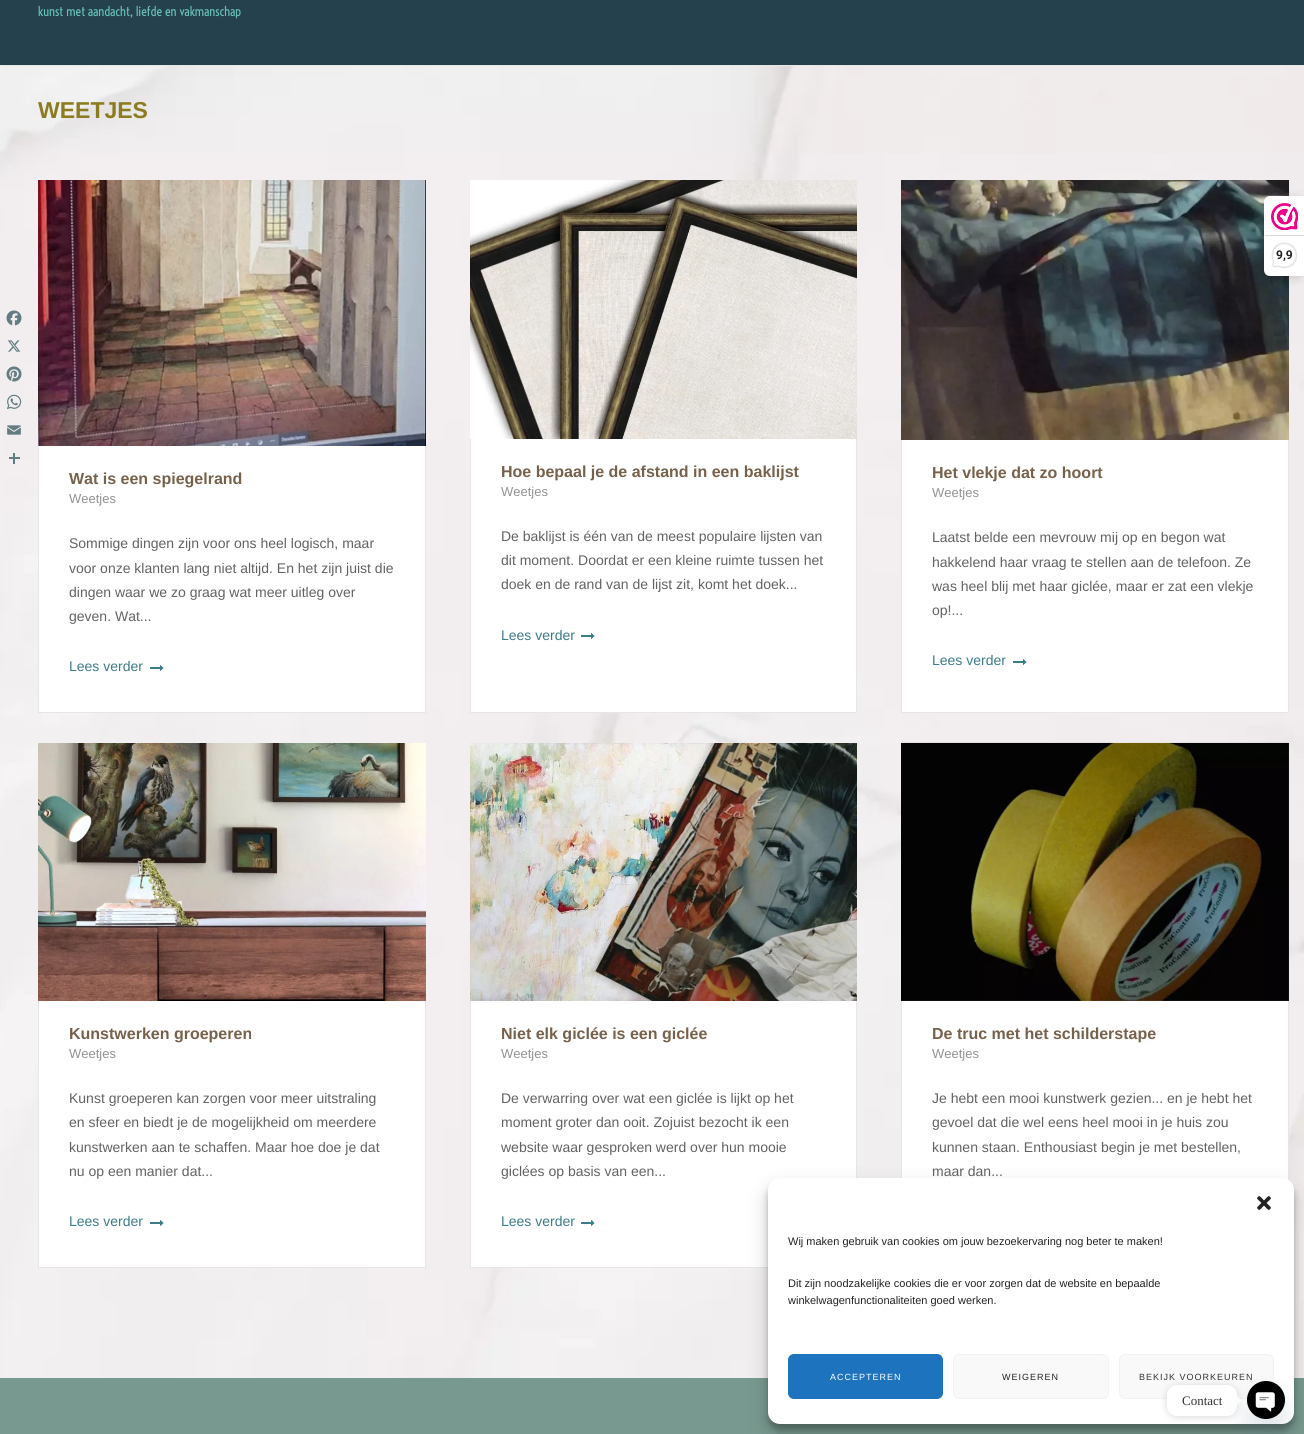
#include <cairo.h>
#include <math.h>
#include <stddef.h>


static void set_color(cairo_t *cr, unsigned color) {
    cairo_set_source_rgb(cr, (color >> 16) / 255.0, (color >> 8 & 255) / 255.0, (color & 255) / 255.0);
}

static void draw_text(cairo_t *cr, double x, double y, const char *s, const char *family, double size, int italic, int bold, unsigned color) {
    cairo_select_font_face(cr, family, italic ? CAIRO_FONT_SLANT_ITALIC : CAIRO_FONT_SLANT_NORMAL,
        bold ? CAIRO_FONT_WEIGHT_BOLD : CAIRO_FONT_WEIGHT_NORMAL);
    cairo_set_font_size(cr, size);
    set_color(cr, color);
    cairo_move_to(cr, x, y);
    cairo_show_text(cr, s);
}

static void draw_spaced(cairo_t *cr, double x, double y, const char *s, double letter, double word) {
    cairo_move_to(cr, x, y);
    while (*s) {
        char ch[5] = {0};
        int n = 0;
        do ch[n++] = *s++; while ((*s & 0xC0) == 0x80);
        cairo_show_text(cr, ch);
        cairo_rel_move_to(cr, letter + word * (*ch == ' '), 0);
    }
}

static void fill_rect(cairo_t *cr, double x, double y, double w, double h, unsigned color) {
    set_color(cr, color);
    cairo_rectangle(cr, x, y, w, h);
    cairo_fill(cr);
}

static void rounded_rect(cairo_t *cr, double x, double y, double w, double h, double r) {
    cairo_new_sub_path(cr);
    cairo_arc(cr, x + w - r, y + h - r, r, 0, M_PI / 2);
    cairo_arc(cr, x + r, y + h - r, r, M_PI / 2, M_PI);
    cairo_arc(cr, x + r, y + r, r, M_PI, 1.5 * M_PI);
    cairo_arc(cr, x + w - r, y + r, r, 1.5 * M_PI, 2 * M_PI);
    cairo_close_path(cr);
}

static void draw_shadow(cairo_t *cr, double x, double y, double w, double h, double r, double blur, double alpha) {
    cairo_push_group_with_content(cr, CAIRO_CONTENT_ALPHA);
    cairo_set_operator(cr, CAIRO_OPERATOR_SOURCE);
    for (int i = 15; i >= -15 && fmin(w, h) + blur * i / 3 > 0; i -= 2) {
        double e = blur * i / 6;
        cairo_set_source_rgba(cr, 0, 0, 0, alpha * erfc((i - 1) / 8.5) / 2);
        rounded_rect(cr, x - e, y - e, w + 2 * e, h + 2 * e, fmax(0, fmin(r + e + blur * .6, fmin(w, h) / 2 + e)));
        cairo_fill(cr);
    }
    cairo_pattern_t *soft = cairo_pop_group(cr);
    cairo_mask(cr, soft);
    cairo_pattern_destroy(soft);
}

static void draw_image(cairo_t *cr, const char *path, double x, double y, double w, double h) {
    cairo_surface_t *image = cairo_image_surface_create_from_png(path);
    cairo_save(cr);
    cairo_set_source_surface(cr, image, x, y);
    cairo_rectangle(cr, x, y, w, h);
    cairo_fill(cr);
    cairo_restore(cr);
    cairo_surface_destroy(image);
}

int main(void) {
    cairo_surface_t *surface = cairo_image_surface_create(CAIRO_FORMAT_RGB24, 1304, 1434);
    cairo_t *cr = cairo_create(surface);
    cairo_font_options_t *options = cairo_font_options_create();
    cairo_font_options_set_hint_metrics(options, CAIRO_HINT_METRICS_OFF);
    cairo_font_options_set_hint_style(options, CAIRO_HINT_STYLE_NONE);
    cairo_set_font_options(cr, options);
    cairo_set_miter_limit(cr, 4);
    set_color(cr, 0xFFFFFF);
    cairo_paint(cr);
    draw_image(cr, "assets/img1.png", 0, 66, 1304, 1312);
    fill_rect(cr, 0, 0, 1304, 65, 0x25414D);
    fill_rect(cr, 0, 65, 1304, 1, 0xE6E6E6);
    draw_text(cr, 38, 16, "kunst met aandacht, liefde en vakmanschap", "Voltaire", 13, 0, 0, 0x67C1B9);
    draw_text(cr, 38, 118, "WEETJES", "Liberation Sans", 23, 0, 1, 0x8C7B1F);
    fill_rect(cr, 39, 446, 386, 266, 0xFFFFFF);
    cairo_rectangle(cr, 38.5, 180.5, 387, 532);
    set_color(cr, 0xE6E6E6);
    cairo_set_line_width(cr, 1);
    cairo_stroke(cr);
    draw_image(cr, "assets/img2.png", 38, 180, 388, 266);
    draw_text(cr, 69, 484, "Wat is een spiegelrand", "Liberation Sans", 16, 0, 1, 0x77614B);
    draw_text(cr, 69, 503, "Weetjes", "Liberation Sans", 13, 0, 0, 0x929292);
    draw_text(cr, 69, 548, "Sommige dingen zijn voor ons heel logisch, maar", "Liberation Sans", 14, 0, 0, 0x626262);
    draw_text(cr, 69, 573, "voor onze klanten lang niet altijd. En het zijn juist die", "Liberation Sans", 14, 0, 0, 0x626262);
    draw_text(cr, 69, 597, "dingen waar we zo graag wat meer uitleg over", "Liberation Sans", 14, 0, 0, 0x626262);
    draw_text(cr, 69, 621, "geven. Wat...", "Liberation Sans", 14, 0, 0, 0x626262);
    draw_text(cr, 69, 671, "Lees verder", "Liberation Sans", 14, 0, 0, 0x3C7B89);
    draw_image(cr, "assets/img3.png", 150, 665, 14, 6);
    fill_rect(cr, 471, 439, 385, 273, 0xFFFFFF);
    cairo_rectangle(cr, 470.5, 180.5, 386, 532);
    set_color(cr, 0xE6E6E6);
    cairo_stroke(cr);
    draw_image(cr, "assets/img4.png", 470, 180, 387, 259);
    draw_text(cr, 501, 477, "Hoe bepaal je de afstand in een baklijst", "Liberation Sans", 16, 0, 1, 0x77614B);
    draw_text(cr, 501, 496, "Weetjes", "Liberation Sans", 13, 0, 0, 0x929292);
    draw_text(cr, 501, 541, "De baklijst is één van de meest populaire lijsten van", "Liberation Sans", 14, 0, 0, 0x626262);
    draw_text(cr, 501, 565, "dit moment. Doordat er een kleine ruimte tussen het", "Liberation Sans", 14, 0, 0, 0x626262);
    draw_text(cr, 501, 589, "doek en de rand van de lijst zit, komt het doek...", "Liberation Sans", 14, 0, 0, 0x626262);
    draw_text(cr, 501, 640, "Lees verder", "Liberation Sans", 14, 0, 0, 0x3C7B89);
    draw_image(cr, "assets/img3.png", 581, 633, 14, 6);
    fill_rect(cr, 902, 440, 386, 272, 0xFFFFFF);
    cairo_rectangle(cr, 901.5, 180.5, 387, 532);
    set_color(cr, 0xE6E6E6);
    cairo_stroke(cr);
    draw_image(cr, "assets/img5.png", 901, 180, 388, 260);
    draw_text(cr, 932, 478, "Het vlekje dat zo hoort", "Liberation Sans", 16, 0, 1, 0x77614B);
    draw_text(cr, 932, 497, "Weetjes", "Liberation Sans", 13, 0, 0, 0x929292);
    draw_text(cr, 932, 542, "Laatst belde een mevrouw mij op en begon wat", "Liberation Sans", 14, 0, 0, 0x626262);
    draw_text(cr, 932, 567, "hakkelend haar vraag te stellen aan de telefoon. Ze", "Liberation Sans", 14, 0, 0, 0x626262);
    draw_text(cr, 932, 591, "was heel blij met haar giclée, maar er zat een vlekje", "Liberation Sans", 14, 0, 0, 0x626262);
    draw_text(cr, 932, 615, "op!...", "Liberation Sans", 14, 0, 0, 0x626262);
    draw_text(cr, 932, 665, "Lees verder", "Liberation Sans", 14, 0, 0, 0x3C7B89);
    draw_image(cr, "assets/img3.png", 1013, 659, 14, 6);
    fill_rect(cr, 39, 1001, 386, 266, 0xFFFFFF);
    cairo_rectangle(cr, 38.5, 743.5, 387, 524);
    set_color(cr, 0xE6E6E6);
    cairo_stroke(cr);
    draw_image(cr, "assets/img6.png", 38, 743, 388, 258);
    draw_text(cr, 69, 1039, "Kunstwerken groeperen", "Liberation Sans", 16, 0, 1, 0x77614B);
    draw_text(cr, 69, 1058, "Weetjes", "Liberation Sans", 13, 0, 0, 0x929292);
    draw_text(cr, 69, 1103, "Kunst groeperen kan zorgen voor meer uitstraling", "Liberation Sans", 14, 0, 0, 0x626262);
    draw_text(cr, 69, 1127, "en sfeer en biedt je de mogelijkheid om meerdere", "Liberation Sans", 14, 0, 0, 0x626262);
    draw_text(cr, 69, 1152, "kunstwerken aan te schaffen. Maar hoe doe je dat", "Liberation Sans", 14, 0, 0, 0x626262);
    draw_text(cr, 69, 1176, "nu op een manier dat...", "Liberation Sans", 14, 0, 0, 0x626262);
    draw_text(cr, 69, 1226, "Lees verder", "Liberation Sans", 14, 0, 0, 0x3C7B89);
    draw_image(cr, "assets/img3.png", 150, 1220, 14, 6);
    fill_rect(cr, 471, 1001, 385, 266, 0xFFFFFF);
    cairo_rectangle(cr, 470.5, 743.5, 386, 524);
    set_color(cr, 0xE6E6E6);
    cairo_stroke(cr);
    draw_image(cr, "assets/img7.png", 470, 743, 387, 258);
    draw_text(cr, 501, 1039, "Niet elk giclée is een giclée", "Liberation Sans", 16, 0, 1, 0x77614B);
    draw_text(cr, 501, 1058, "Weetjes", "Liberation Sans", 13, 0, 0, 0x929292);
    draw_text(cr, 501, 1103, "De verwarring over wat een giclée is lijkt op het", "Liberation Sans", 14, 0, 0, 0x626262);
    draw_text(cr, 501, 1127, "moment groter dan ooit. Zojuist bezocht ik een", "Liberation Sans", 14, 0, 0, 0x626262);
    draw_text(cr, 501, 1152, "website waar gesproken werd over hun mooie", "Liberation Sans", 14, 0, 0, 0x626262);
    draw_text(cr, 501, 1176, "giclées op basis van een...", "Liberation Sans", 14, 0, 0, 0x626262);
    draw_text(cr, 501, 1226, "Lees verder", "Liberation Sans", 14, 0, 0, 0x3C7B89);
    draw_image(cr, "assets/img3.png", 581, 1220, 14, 6);
    fill_rect(cr, 902, 1000, 386, 180, 0xFFFFFF);
    cairo_rectangle(cr, 901.5, 743.5, 387, 524);
    set_color(cr, 0xE6E6E6);
    cairo_stroke(cr);
    draw_image(cr, "assets/img8.png", 901, 742, 388, 259);
    draw_text(cr, 932, 1039, "De truc met het schilderstape", "Liberation Sans", 16, 0, 1, 0x77614B);
    draw_text(cr, 932, 1058, "Weetjes", "Liberation Sans", 13, 0, 0, 0x929292);
    draw_text(cr, 932, 1103, "Je hebt een mooi kunstwerk gezien... en je hebt het", "Liberation Sans", 14, 0, 0, 0x626262);
    draw_text(cr, 932, 1127, "gevoel dat die wel eens heel mooi in je huis zou", "Liberation Sans", 14, 0, 0, 0x626262);
    draw_text(cr, 932, 1152, "kunnen staan. Enthousiast begin je met bestellen,", "Liberation Sans", 14, 0, 0, 0x626262);
    draw_text(cr, 932, 1176, "maar dan...", "Liberation Sans", 14, 0, 0, 0x626262);
    fill_rect(cr, 0, 1378, 1304, 56, 0x78998F);
    set_color(cr, 0x000000);
    draw_shadow(cr, 1264, 198, 40, 80, 6, 5, 0.15);
    set_color(cr, 0xFFFFFF);
    cairo_new_path(cr);
    cairo_move_to(cr, 1270, 196);
    cairo_line_to(cr, 1304, 196);
    cairo_line_to(cr, 1304, 276);
    cairo_line_to(cr, 1270, 276);
    cairo_curve_to(cr, 1266.5, 276, 1264, 273.5, 1264, 270);
    cairo_line_to(cr, 1264, 202);
    cairo_curve_to(cr, 1264, 198.5, 1266.5, 196, 1270, 196);
    cairo_close_path(cr);
    cairo_fill(cr);
    draw_image(cr, "assets/img9.png", 1271, 203, 27, 27);
    fill_rect(cr, 1265, 235, 39, 1, 0xD9D9D9);
    draw_image(cr, "assets/img10.png", 1271, 242, 26, 26);
    draw_text(cr, 1276, 259, "9,9", "Roboto", 12, 0, 1, 0x222222);
    draw_image(cr, "assets/img11.png", 6, 310, 16, 16);
    draw_image(cr, "assets/img12.png", 7, 340, 14, 12);
    draw_image(cr, "assets/img13.png", 6, 366, 16, 16);
    draw_image(cr, "assets/img14.png", 6, 394, 16, 16);
    draw_image(cr, "assets/img15.png", 7, 425, 14, 10);
    fill_rect(cr, 13, 453, 2, 11, 0x627D82);
    fill_rect(cr, 9, 457, 11, 2, 0x627D82);
    set_color(cr, 0x000000);
    draw_shadow(cr, 768, 1184, 526, 246, 12, 3, 0.23);
    draw_shadow(cr, 768, 1188, 526, 246, 12, 10, 0.19);
    set_color(cr, 0xFFFFFF);
    rounded_rect(cr, 768, 1178, 526, 246, 12);
    cairo_fill(cr);
    draw_image(cr, "assets/img16.png", 1257, 1196, 14, 14);
    draw_text(cr, 788, 1245, "Wij maken gebruik van cookies om jouw bezoekervaring nog beter te maken!", "Liberation Sans", 11, 0, 0, 0x222222);
    draw_text(cr, 788, 1287, "Dit zijn noodzakelijke cookies die er voor zorgen dat de website en bepaalde", "Liberation Sans", 11, 0, 0, 0x222222);
    draw_text(cr, 788, 1304, "winkelwagenfunctionaliteiten goed werken.", "Liberation Sans", 11, 0, 0, 0x222222);
    set_color(cr, 0x1E73BE);
    rounded_rect(cr, 788.5, 1354.5, 154, 44, 5.5);
    cairo_fill_preserve(cr);
    cairo_stroke(cr);
    cairo_set_font_size(cr, 9);
    set_color(cr, 0xFFFFFF);
    draw_spaced(cr, 830, 1380, "ACCEPTEREN", 1, 0);
    set_color(cr, 0xF9F9F9);
    rounded_rect(cr, 953.5, 1354.5, 155, 44, 5.5);
    cairo_fill_preserve(cr);
    set_color(cr, 0xF2F2F2);
    cairo_stroke(cr);
    set_color(cr, 0x222222);
    draw_spaced(cr, 1002, 1380, "WEIGEREN", 1, 0);
    set_color(cr, 0xF9F9F9);
    rounded_rect(cr, 1119.5, 1354.5, 154, 44, 5.5);
    cairo_fill_preserve(cr);
    set_color(cr, 0xF2F2F2);
    cairo_stroke(cr);
    set_color(cr, 0x333333);
    draw_spaced(cr, 1139, 1380, "BEKIJK VOORKEUREN", 1, 0);
    set_color(cr, 0x000000);
    draw_shadow(cr, 1167, 1386, 70, 31, 10, 4, 0.15);
    set_color(cr, 0xFFFFFF);
    rounded_rect(cr, 1167, 1385, 70, 31, 10);
    cairo_fill(cr);
    draw_text(cr, 1182, 1405, "Contact", "Liberation Serif", 13, 0, 0, 0x333333);
    set_color(cr, 0xFFFFFF);
    cairo_new_path(cr);
    cairo_move_to(cr, 1237, 1405.5);
    cairo_line_to(cr, 1237, 1395.5);
    cairo_line_to(cr, 1242, 1400.5);
    cairo_close_path(cr);
    cairo_fill(cr);
    set_color(cr, 0x49687E);
    draw_shadow(cr, 1247, 1397, 38, 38, 19, 12, 0.16);
    draw_image(cr, "assets/img17.png", 1247, 1381, 38, 38);
    cairo_surface_write_to_png(surface, "output.png");
    cairo_font_options_destroy(options);
    cairo_destroy(cr);
    cairo_surface_destroy(surface);
    return 0;
}
